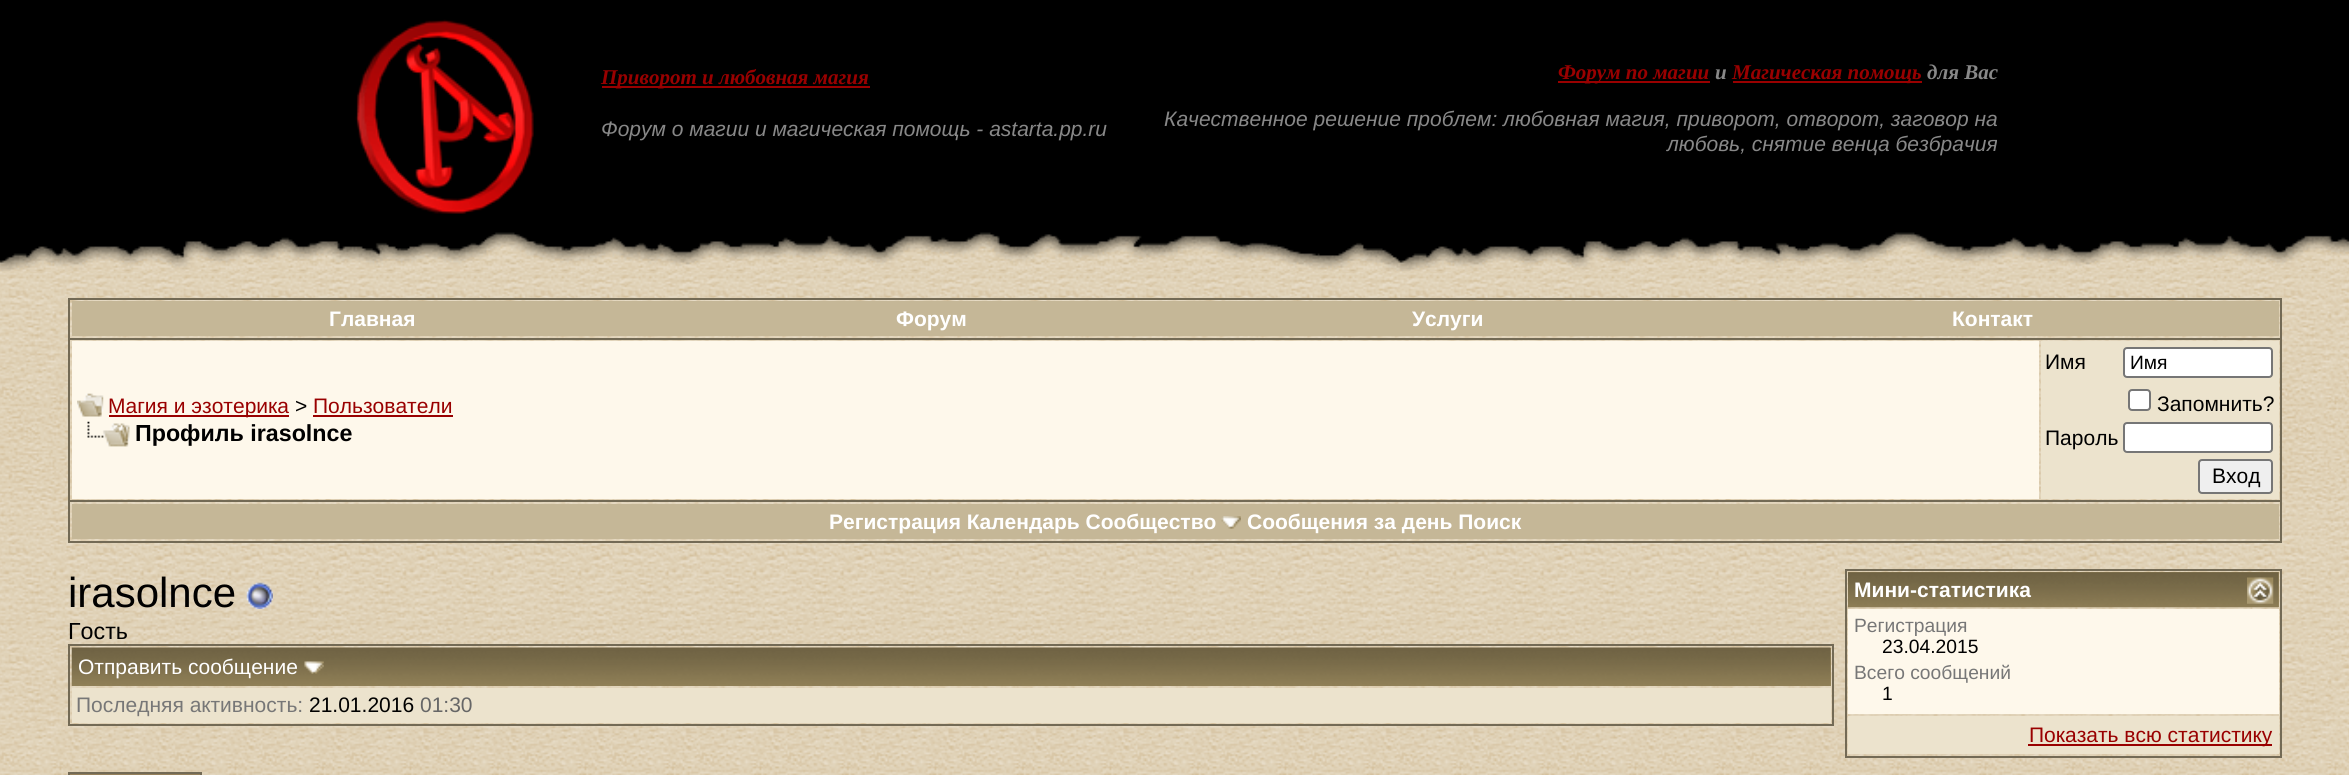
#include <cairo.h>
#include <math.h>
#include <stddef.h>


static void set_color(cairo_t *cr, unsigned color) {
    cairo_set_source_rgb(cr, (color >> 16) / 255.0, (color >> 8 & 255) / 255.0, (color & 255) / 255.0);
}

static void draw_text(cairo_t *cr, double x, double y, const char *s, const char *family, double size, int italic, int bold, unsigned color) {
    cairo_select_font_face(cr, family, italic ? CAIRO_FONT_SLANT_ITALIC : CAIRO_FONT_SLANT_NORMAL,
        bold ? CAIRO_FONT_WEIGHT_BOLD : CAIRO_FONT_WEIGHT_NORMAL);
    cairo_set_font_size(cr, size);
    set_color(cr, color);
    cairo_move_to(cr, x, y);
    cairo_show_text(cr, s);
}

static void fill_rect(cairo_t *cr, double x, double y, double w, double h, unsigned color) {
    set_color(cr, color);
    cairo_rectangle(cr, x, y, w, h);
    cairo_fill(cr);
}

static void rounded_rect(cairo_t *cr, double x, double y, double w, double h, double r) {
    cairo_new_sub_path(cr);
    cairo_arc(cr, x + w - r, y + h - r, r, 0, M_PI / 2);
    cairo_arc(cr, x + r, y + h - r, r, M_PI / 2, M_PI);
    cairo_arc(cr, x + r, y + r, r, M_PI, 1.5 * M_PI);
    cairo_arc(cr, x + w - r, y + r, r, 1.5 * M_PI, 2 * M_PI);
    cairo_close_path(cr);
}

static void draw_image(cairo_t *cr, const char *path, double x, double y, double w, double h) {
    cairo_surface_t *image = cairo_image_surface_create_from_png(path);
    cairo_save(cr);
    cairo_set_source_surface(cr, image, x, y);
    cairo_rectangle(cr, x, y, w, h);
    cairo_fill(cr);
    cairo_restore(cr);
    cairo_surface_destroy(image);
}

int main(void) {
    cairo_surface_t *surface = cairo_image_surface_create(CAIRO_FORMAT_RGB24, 2349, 775);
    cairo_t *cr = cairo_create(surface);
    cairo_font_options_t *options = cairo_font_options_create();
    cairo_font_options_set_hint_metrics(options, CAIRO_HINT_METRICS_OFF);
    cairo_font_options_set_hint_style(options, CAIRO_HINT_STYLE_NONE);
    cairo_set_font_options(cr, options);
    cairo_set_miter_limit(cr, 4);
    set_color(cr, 0xFFFFFF);
    cairo_paint(cr);
    draw_image(cr, "assets/img1.png", 0, 271, 2349, 504);
    fill_rect(cr, 0, 0, 2349, 232, 0x000000);
    draw_image(cr, "assets/img2.png", 0, 232, 2349, 40);
    draw_image(cr, "assets/img3.png", 355, 19, 179, 195);
    fill_rect(cr, 602, 86, 268, 2, 0x990000);
    draw_text(cr, 601, 84, "Приворот и любовная магия", "Liberation Serif", 21, 1, 1, 0x990000);
    draw_text(cr, 601, 136, "Форум о магии и магическая помощь - astarta.pp.ru", "Liberation Sans", 21, 1, 0, 0x888888);
    fill_rect(cr, 1558, 81, 152, 2, 0x990000);
    draw_text(cr, 1558, 79, "Форум по магии", "Liberation Serif", 21, 1, 1, 0x990000);
    draw_text(cr, 1715, 79, "и", "Liberation Serif", 21, 1, 1, 0x888888);
    fill_rect(cr, 1733, 81, 189, 2, 0x990000);
    draw_text(cr, 1732, 79, "Магическая помощь", "Liberation Serif", 21, 1, 1, 0x990000);
    draw_text(cr, 1927, 79, "для Вас", "Liberation Serif", 21, 1, 1, 0x888888);
    draw_text(cr, 1164, 126, "Качественное решение проблем: любовная магия, приворот, отворот, заговор на", "Liberation Sans", 21, 1, 0, 0x888888);
    draw_text(cr, 1667, 151, "любовь, снятие венца безбрачия", "Liberation Sans", 21, 1, 0, 0x888888);
    fill_rect(cr, 68, 298, 2214, 2, 0x736A55);
    fill_rect(cr, 2280, 298, 2, 40, 0x736A55);
    fill_rect(cr, 68, 298, 2, 40, 0x736A55);
    fill_rect(cr, 72, 301, 2207, 35, 0xC5B797);
    draw_text(cr, 329, 326, "Главная", "Liberation Sans", 21, 0, 1, 0xFFFFFF);
    draw_text(cr, 896, 326, "Форум", "Liberation Sans", 21, 0, 1, 0xFFFFFF);
    draw_text(cr, 1412, 326, "Услуги", "Liberation Sans", 21, 0, 1, 0xFFFFFF);
    draw_text(cr, 1952, 326, "Контакт", "Liberation Sans", 21, 0, 1, 0xFFFFFF);
    cairo_rectangle(cr, 69, 339, 2212, 162);
    set_color(cr, 0x736A55);
    cairo_stroke(cr);
    fill_rect(cr, 72, 341, 1967, 158, 0xFEF8EB);
    draw_image(cr, "assets/img4.png", 77, 393, 27, 24);
    fill_rect(cr, 109, 415, 180, 2, 0x990000);
    draw_text(cr, 108, 413, "Магия и эзотерика", "Liberation Sans", 21, 0, 0, 0x990000);
    draw_text(cr, 295, 413, ">", "Liberation Sans", 21, 0, 0, 0x000000);
    draw_text(cr, 313, 413, "Пользователи", "Liberation Sans", 21, 0, 0, 0x990000);
    fill_rect(cr, 313, 415, 140, 2, 0x990000);
    draw_image(cr, "assets/img5.png", 87, 421, 43, 26);
    draw_text(cr, 135, 441, "Профиль irasolnce", "Liberation Sans", 23.25, 0, 1, 0x000000);
    fill_rect(cr, 2041, 341, 238, 158, 0xECE3CD);
    draw_text(cr, 2045, 369, "Имя", "Liberation Sans", 21, 0, 0, 0x000000);
    set_color(cr, 0xFFFFFF);
    rounded_rect(cr, 2124, 348, 148, 29, 3);
    cairo_fill_preserve(cr);
    set_color(cr, 0x767676);
    cairo_stroke(cr);
    draw_text(cr, 2130, 369, "Имя", "Liberation Sans", 19.25, 0, 0, 0x000000);
    set_color(cr, 0xFFFFFF);
    rounded_rect(cr, 2129, 390, 21, 20, 3);
    cairo_fill_preserve(cr);
    set_color(cr, 0x767676);
    cairo_stroke(cr);
    draw_text(cr, 2157, 411, "Запомнить?", "Liberation Sans", 21, 0, 0, 0x000000);
    draw_text(cr, 2045, 445, "Пароль", "Liberation Sans", 21, 0, 0, 0x000000);
    set_color(cr, 0xFFFFFF);
    rounded_rect(cr, 2124, 423, 148, 29, 3);
    cairo_fill_preserve(cr);
    set_color(cr, 0x767676);
    cairo_stroke(cr);
    set_color(cr, 0xEFEFEF);
    rounded_rect(cr, 2199, 460, 73, 33, 3);
    cairo_fill_preserve(cr);
    set_color(cr, 0x767676);
    cairo_stroke(cr);
    draw_text(cr, 2212, 483, "Вход", "Liberation Sans", 21, 0, 0, 0x000000);
    fill_rect(cr, 2280, 502, 2, 41, 0x736A55);
    fill_rect(cr, 68, 541, 2214, 2, 0x736A55);
    fill_rect(cr, 68, 502, 2, 41, 0x736A55);
    fill_rect(cr, 72, 504, 2207, 35, 0xC5B797);
    draw_text(cr, 829, 529, "Регистрация Календарь Сообщество", "Liberation Sans", 21, 0, 1, 0xFFFFFF);
    draw_image(cr, "assets/img6.png", 1221, 516, 20, 13);
    draw_text(cr, 1247, 529, "Сообщения за день Поиск", "Liberation Sans", 21, 0, 1, 0xFFFFFF);
    draw_text(cr, 68, 607, "irasolnce", "Liberation Sans", 42, 0, 0, 0x000000);
    draw_image(cr, "assets/img7.png", 246, 582, 27, 27);
    draw_text(cr, 68, 639, "Гость", "Liberation Sans", 23.25, 0, 0, 0x000000);
    cairo_rectangle(cr, 69, 645, 1764, 80);
    set_color(cr, 0x736A55);
    cairo_stroke(cr);
    fill_rect(cr, 1830, 648, 1, 38, 0x9A885D);
    draw_image(cr, "assets/img8.png", 71, 647, 1760, 39);
    draw_text(cr, 78, 674, "Отправить сообщение", "Liberation Sans", 21, 0, 0, 0xFFFFFF);
    draw_image(cr, "assets/img9.png", 304, 661, 20, 13);
    fill_rect(cr, 72, 688, 1759, 35, 0xECE3CD);
    draw_text(cr, 76, 712, "Последняя активность:", "Liberation Sans", 21, 0, 0, 0x777777);
    draw_text(cr, 309, 712, "21.01.2016", "Liberation Sans", 21, 0, 0, 0x000000);
    draw_text(cr, 420, 712, "01:30", "Liberation Sans", 21, 0, 0, 0x666666);
    draw_image(cr, "assets/img10.png", 70, 774, 130, 1);
    fill_rect(cr, 68, 772, 133, 2, 0x736A55);
    fill_rect(cr, 200, 772, 2, 3, 0x736A55);
    fill_rect(cr, 68, 772, 2, 3, 0x736A55);
    cairo_rectangle(cr, 1846, 570, 435, 187);
    cairo_stroke(cr);
    fill_rect(cr, 1848, 572, 431, 35, 0x9A885D);
    draw_image(cr, "assets/img11.png", 1848, 572, 431, 36);
    draw_text(cr, 1854, 597, "Мини-статистика", "Liberation Sans", 21, 0, 1, 0xFFFFFF);
    draw_image(cr, "assets/img12.png", 2247, 577, 27, 27);
    fill_rect(cr, 1848, 609, 431, 105, 0xFEF8EB);
    draw_text(cr, 1854, 632, "Регистрация", "Liberation Sans", 19.25, 0, 0, 0x777777);
    draw_text(cr, 1882, 653, "23.04.2015", "Liberation Sans", 19.25, 0, 0, 0x000000);
    draw_text(cr, 1854, 679, "Всего сообщений", "Liberation Sans", 19.25, 0, 0, 0x777777);
    draw_text(cr, 1882, 700, "1", "Liberation Sans", 19.25, 0, 0, 0x000000);
    fill_rect(cr, 1848, 716, 431, 38, 0xECE3CD);
    fill_rect(cr, 2028, 744, 244, 2, 0x990000);
    draw_text(cr, 2029, 742, "Показать всю статистику", "Liberation Sans", 21, 0, 0, 0x990000);
    cairo_surface_write_to_png(surface, "output.png");
    cairo_font_options_destroy(options);
    cairo_destroy(cr);
    cairo_surface_destroy(surface);
    return 0;
}
